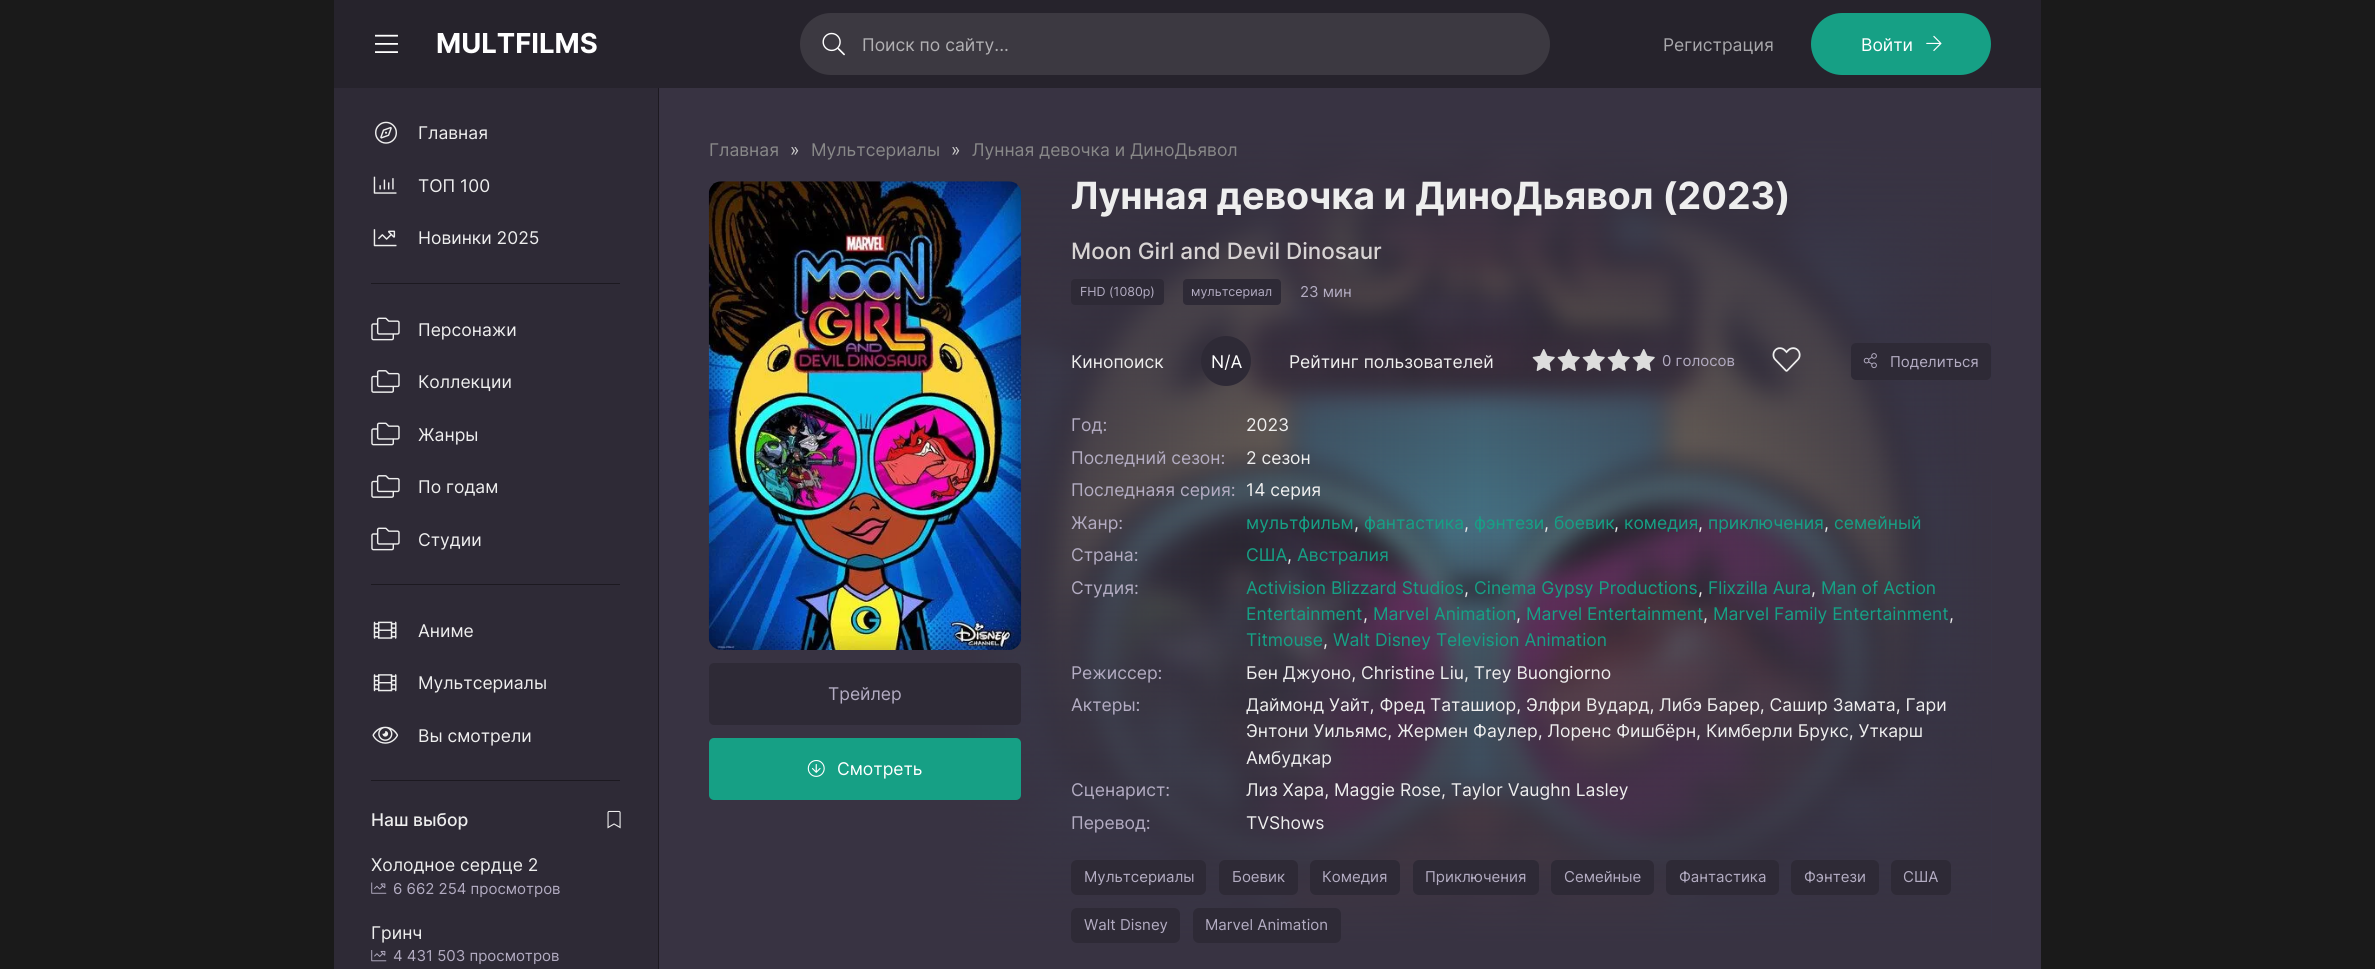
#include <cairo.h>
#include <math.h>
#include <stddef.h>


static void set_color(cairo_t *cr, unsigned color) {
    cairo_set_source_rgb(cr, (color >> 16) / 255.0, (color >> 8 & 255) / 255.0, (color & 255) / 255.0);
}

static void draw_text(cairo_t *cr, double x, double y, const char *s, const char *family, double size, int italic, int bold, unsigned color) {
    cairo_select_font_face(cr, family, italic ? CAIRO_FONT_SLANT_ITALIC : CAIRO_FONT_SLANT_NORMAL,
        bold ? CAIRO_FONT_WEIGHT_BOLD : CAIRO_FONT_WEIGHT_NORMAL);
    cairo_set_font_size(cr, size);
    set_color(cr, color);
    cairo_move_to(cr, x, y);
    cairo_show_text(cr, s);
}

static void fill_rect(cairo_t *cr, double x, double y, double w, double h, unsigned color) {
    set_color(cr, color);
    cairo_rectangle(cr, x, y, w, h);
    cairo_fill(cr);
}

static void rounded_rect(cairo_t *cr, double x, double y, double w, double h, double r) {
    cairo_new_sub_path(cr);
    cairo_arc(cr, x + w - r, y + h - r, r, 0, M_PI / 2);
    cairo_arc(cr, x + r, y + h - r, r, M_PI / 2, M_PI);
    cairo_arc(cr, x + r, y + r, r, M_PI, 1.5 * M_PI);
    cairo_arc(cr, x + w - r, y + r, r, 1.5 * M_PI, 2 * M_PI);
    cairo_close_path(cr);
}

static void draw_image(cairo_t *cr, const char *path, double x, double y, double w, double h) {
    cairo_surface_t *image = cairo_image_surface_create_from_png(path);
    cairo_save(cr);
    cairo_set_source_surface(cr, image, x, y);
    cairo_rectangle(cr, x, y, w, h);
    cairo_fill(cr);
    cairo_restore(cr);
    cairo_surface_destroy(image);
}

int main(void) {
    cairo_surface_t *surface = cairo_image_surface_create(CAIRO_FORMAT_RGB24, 2375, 969);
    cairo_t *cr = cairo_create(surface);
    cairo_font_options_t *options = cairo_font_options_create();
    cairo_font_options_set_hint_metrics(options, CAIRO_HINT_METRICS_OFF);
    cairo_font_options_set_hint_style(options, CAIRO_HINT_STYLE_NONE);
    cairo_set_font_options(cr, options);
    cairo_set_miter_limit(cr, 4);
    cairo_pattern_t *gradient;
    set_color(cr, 0x1A1A1A);
    cairo_paint(cr);
    fill_rect(cr, 659, 88, 1382, 881, 0x383342);
    fill_rect(cr, 334, 0, 1707, 88, 0x26232C);
    draw_image(cr, "assets/img1.png", 375, 34, 23, 19);
    draw_text(cr, 436, 53, "MULTFILMS", "Inter", 27.5, 0, 1, 0xFFFFFF);
    set_color(cr, 0x3C3941);
    rounded_rect(cr, 800, 13, 750, 62, 31);
    cairo_fill(cr);
    draw_image(cr, "assets/img2.png", 822, 32, 23, 24);
    draw_text(cr, 862, 51, "Поиск по сайту...", "Inter", 17.5, 0, 0, 0xB1B0B3);
    draw_text(cr, 1663, 51, "Регистрация", "Inter", 17.5, 0, 0, 0xA8A7AB);
    set_color(cr, 0x16A085);
    rounded_rect(cr, 1811, 13, 180, 62, 31);
    cairo_fill(cr);
    draw_text(cr, 1861, 51, "Войти", "Inter", 17.5, 0, 0, 0xFFFFFF);
    draw_image(cr, "assets/img3.png", 1926, 35, 16, 16);
    fill_rect(cr, 334, 88, 324, 881, 0x2E2A36);
    fill_rect(cr, 658, 88, 1, 881, 0x1C1920);
    draw_image(cr, "assets/img4.png", 375, 121, 22, 23);
    draw_text(cr, 418, 139, "Главная", "Inter", 17.5, 0, 0, 0xEEEEEE);
    draw_image(cr, "assets/img5.png", 373, 176, 24, 18);
    draw_text(cr, 418, 192, "ТОП 100", "Inter", 17.5, 0, 0, 0xEEEEEE);
    draw_image(cr, "assets/img6.png", 373, 229, 24, 18);
    draw_text(cr, 418, 244, "Новинки 2025", "Inter", 17.5, 0, 0, 0xEEEEEE);
    fill_rect(cr, 371, 283, 249, 1, 0x1C1920);
    draw_image(cr, "assets/img7.png", 371, 317, 29, 24);
    draw_text(cr, 418, 336, "Персонажи", "Inter", 17.5, 0, 0, 0xEEEEEE);
    draw_image(cr, "assets/img8.png", 371, 370, 29, 23);
    draw_text(cr, 418, 388, "Коллекции", "Inter", 17.5, 0, 0, 0xEEEEEE);
    draw_image(cr, "assets/img7.png", 371, 422, 29, 24);
    draw_text(cr, 418, 441, "Жанры", "Inter", 17.5, 0, 0, 0xEEEEEE);
    draw_image(cr, "assets/img8.png", 371, 475, 29, 23);
    draw_text(cr, 418, 493, "По годам", "Inter", 17.5, 0, 0, 0xEEEEEE);
    draw_image(cr, "assets/img7.png", 371, 527, 29, 24);
    draw_text(cr, 418, 546, "Студии", "Inter", 17.5, 0, 0, 0xEEEEEE);
    fill_rect(cr, 371, 584, 249, 1, 0x1C1920);
    draw_image(cr, "assets/img9.png", 373, 621, 24, 18);
    draw_text(cr, 418, 637, "Аниме", "Inter", 17.5, 0, 0, 0xEEEEEE);
    draw_image(cr, "assets/img10.png", 373, 674, 24, 18);
    draw_text(cr, 418, 689, "Мультсериалы", "Inter", 17.5, 0, 0, 0xEEEEEE);
    draw_image(cr, "assets/img11.png", 372, 726, 27, 18);
    draw_text(cr, 418, 742, "Вы смотрели", "Inter", 17.5, 0, 0, 0xEEEEEE);
    fill_rect(cr, 371, 780, 249, 1, 0x1C1920);
    draw_text(cr, 371, 826, "Наш выбор", "Inter Medium", 17.5, 0, 0, 0xEEEEEE);
    draw_image(cr, "assets/img12.png", 607, 810, 14, 19);
    draw_text(cr, 371, 871, "Холодное сердце 2", "Inter", 17.5, 0, 0, 0xEEEEEE);
    draw_image(cr, "assets/img13.png", 371, 882, 16, 12);
    draw_text(cr, 393, 894, "6 662 254 просмотров", "Inter", 15, 0, 0, 0xB3ACC2);
    draw_text(cr, 371, 939, "Гринч", "Inter", 17.5, 0, 0, 0xEEEEEE);
    draw_image(cr, "assets/img14.png", 371, 950, 16, 12);
    draw_text(cr, 393, 961, "4 431 503 просмотров", "Inter", 15, 0, 0, 0xB3ACC2);
    draw_text(cr, 709, 156, "Главная", "Inter", 17.5, 0, 0, 0x888888);
    draw_text(cr, 790, 156, "»", "Inter", 17.5, 0, 0, 0xCCCCCC);
    draw_text(cr, 811, 156, "Мультсериалы", "Inter", 17.5, 0, 0, 0x888888);
    draw_text(cr, 951, 156, "»", "Inter", 17.5, 0, 0, 0xCCCCCC);
    draw_image(cr, "assets/img15.png", 968, 131, 1024, 811);
    gradient = cairo_pattern_create_linear(965, 537, 1991, 537);
    cairo_pattern_add_color_stop_rgba(gradient, 0, 0.22, 0.2, 0.259, 1);
    cairo_pattern_add_color_stop_rgba(gradient, 0.5, 0.22, 0.2, 0.259, 0);
    cairo_pattern_add_color_stop_rgba(gradient, 1, 0.22, 0.2, 0.259, 1);
    cairo_set_source(cr, gradient);
    cairo_pattern_destroy(gradient);
    cairo_rectangle(cr, 968, 133, 1023, 808);
    cairo_fill(cr);
    gradient = cairo_pattern_create_linear(1478, 131, 1478, 943);
    cairo_pattern_add_color_stop_rgba(gradient, 0, 0.22, 0.2, 0.259, 1);
    cairo_pattern_add_color_stop_rgba(gradient, 0.5, 0.22, 0.2, 0.259, 0);
    cairo_pattern_add_color_stop_rgba(gradient, 1, 0.22, 0.2, 0.259, 1);
    cairo_set_source(cr, gradient);
    cairo_pattern_destroy(gradient);
    cairo_rectangle(cr, 968, 131, 1023, 811);
    cairo_fill(cr);
    draw_text(cr, 972, 156, "Лунная девочка и ДиноДьявол", "Inter", 17.5, 0, 0, 0x888888);
    draw_text(cr, 1071, 209, "Лунная девочка и ДиноДьявол (2023)", "Inter", 37.5, 0, 1, 0xEEEEEE);
    draw_text(cr, 1071, 259, "Moon Girl and Devil Dinosaur", "Inter Medium", 22.5, 0, 0, 0xD8D4D4);
    set_color(cr, 0x2E2A36);
    rounded_rect(cr, 1071, 279, 93, 26, 4);
    cairo_fill(cr);
    draw_text(cr, 1080, 296, "FHD (1080p)", "Inter", 12.5, 0, 0, 0xB3ACC2);
    set_color(cr, 0x2E2A36);
    rounded_rect(cr, 1183, 279, 98, 26, 4);
    cairo_fill(cr);
    draw_text(cr, 1191, 296, "мультсериал", "Inter", 12.5, 0, 0, 0xB3ACC2);
    draw_text(cr, 1300, 297, "23 мин", "Inter", 15, 0, 0, 0xB3ACC2);
    draw_image(cr, "assets/img16.png", 708, 181, 314, 469);
    set_color(cr, 0x2E2A36);
    rounded_rect(cr, 709, 663, 312, 62, 5);
    cairo_fill(cr);
    draw_text(cr, 828, 700, "Трейлер", "Inter", 17.5, 0, 0, 0xB3ACC2);
    set_color(cr, 0x16A085);
    rounded_rect(cr, 709, 738, 312, 62, 5);
    cairo_fill(cr);
    draw_image(cr, "assets/img17.png", 807, 760, 18, 17);
    draw_text(cr, 837, 775, "Смотреть", "Inter", 17.5, 0, 0, 0xFFFFFF);
    draw_text(cr, 1071, 368, "Кинопоиск", "Inter", 17.5, 0, 0, 0xEEEEEE);
    set_color(cr, 0x2E2A36);
    cairo_new_path(cr);
    cairo_arc(cr, 1226, 361, 25, 0, 2 * M_PI);
    cairo_fill(cr);
    draw_text(cr, 1211, 368, "N/A", "Inter", 17.5, 0, 0, 0xFFFFFF);
    draw_text(cr, 1289, 368, "Рейтинг пользователей", "Inter", 17.5, 0, 0, 0xEEEEEE);
    draw_image(cr, "assets/img18.png", 1532, 349, 23, 22);
    draw_image(cr, "assets/img19.png", 1557, 349, 23, 22);
    draw_image(cr, "assets/img20.png", 1582, 349, 23, 22);
    draw_image(cr, "assets/img21.png", 1607, 349, 23, 22);
    draw_image(cr, "assets/img22.png", 1632, 349, 23, 22);
    draw_text(cr, 1662, 366, "0 голосов", "Inter", 15, 0, 0, 0xB3ACC2);
    draw_image(cr, "assets/img23.png", 1772, 347, 29, 25);
    set_color(cr, 0x2E2A36);
    rounded_rect(cr, 1851, 343, 140, 37, 5);
    cairo_fill(cr);
    draw_image(cr, "assets/img24.png", 1863, 353, 14, 16);
    draw_text(cr, 1890, 367, "Поделиться", "Inter", 15, 0, 0, 0xB3ACC2);
    draw_text(cr, 1071, 431, "Год:", "Inter", 17.5, 0, 0, 0xB3ACC2);
    draw_text(cr, 1246, 431, "2023", "Inter", 17.5, 0, 0, 0xEEEEEE);
    draw_text(cr, 1071, 464, "Последний сезон:", "Inter", 17.5, 0, 0, 0xB3ACC2);
    draw_text(cr, 1246, 464, "2 сезон", "Inter", 17.5, 0, 0, 0xEEEEEE);
    draw_text(cr, 1071, 496, "Последнаяя серия:", "Inter", 17.5, 0, 0, 0xB3ACC2);
    draw_text(cr, 1246, 496, "14 серия", "Inter", 17.5, 0, 0, 0xEEEEEE);
    draw_text(cr, 1071, 529, "Жанр:", "Inter", 17.5, 0, 0, 0xB3ACC2);
    draw_text(cr, 1246, 529, "мультфильм", "Inter", 17.5, 0, 0, 0x16A085);
    draw_text(cr, 1354, 529, ",", "Inter", 17.5, 0, 0, 0xEEEEEE);
    draw_text(cr, 1364, 529, "фантастика", "Inter", 17.5, 0, 0, 0x16A085);
    draw_text(cr, 1464, 529, ",", "Inter", 17.5, 0, 0, 0xEEEEEE);
    draw_text(cr, 1474, 529, "фэнтези", "Inter", 17.5, 0, 0, 0x16A085);
    draw_text(cr, 1544, 529, ",", "Inter", 17.5, 0, 0, 0xEEEEEE);
    draw_text(cr, 1554, 529, "боевик", "Inter", 17.5, 0, 0, 0x16A085);
    draw_text(cr, 1614, 529, ",", "Inter", 17.5, 0, 0, 0xEEEEEE);
    draw_text(cr, 1624, 529, "комедия", "Inter", 17.5, 0, 0, 0x16A085);
    draw_text(cr, 1698, 529, ",", "Inter", 17.5, 0, 0, 0xEEEEEE);
    draw_text(cr, 1708, 529, "приключения", "Inter", 17.5, 0, 0, 0x16A085);
    draw_text(cr, 1824, 529, ",", "Inter", 17.5, 0, 0, 0xEEEEEE);
    draw_text(cr, 1834, 529, "семейный", "Inter", 17.5, 0, 0, 0x16A085);
    draw_text(cr, 1071, 561, "Страна:", "Inter", 17.5, 0, 0, 0xB3ACC2);
    draw_text(cr, 1246, 561, "США", "Inter", 17.5, 0, 0, 0x16A085);
    draw_text(cr, 1287, 561, ",", "Inter", 17.5, 0, 0, 0xEEEEEE);
    draw_text(cr, 1297, 561, "Австралия", "Inter", 17.5, 0, 0, 0x16A085);
    draw_text(cr, 1071, 594, "Студия:", "Inter", 17.5, 0, 0, 0xB3ACC2);
    draw_text(cr, 1246, 594, "Activision Blizzard Studios", "Inter", 17.5, 0, 0, 0x16A085);
    draw_text(cr, 1464, 594, ",", "Inter", 17.5, 0, 0, 0xEEEEEE);
    draw_text(cr, 1474, 594, "Cinema Gypsy Productions", "Inter", 17.5, 0, 0, 0x16A085);
    draw_text(cr, 1698, 594, ",", "Inter", 17.5, 0, 0, 0xEEEEEE);
    draw_text(cr, 1708, 594, "Flixzilla Aura", "Inter", 17.5, 0, 0, 0x16A085);
    draw_text(cr, 1811, 594, ",", "Inter", 17.5, 0, 0, 0xEEEEEE);
    draw_text(cr, 1821, 594, "Man of Action", "Inter", 17.5, 0, 0, 0x16A085);
    draw_text(cr, 1246, 620, "Entertainment", "Inter", 17.5, 0, 0, 0x16A085);
    draw_text(cr, 1363, 620, ",", "Inter", 17.5, 0, 0, 0xEEEEEE);
    draw_text(cr, 1373, 620, "Marvel Animation", "Inter", 17.5, 0, 0, 0x16A085);
    draw_text(cr, 1516, 620, ",", "Inter", 17.5, 0, 0, 0xEEEEEE);
    draw_text(cr, 1526, 620, "Marvel Entertainment", "Inter", 17.5, 0, 0, 0x16A085);
    draw_text(cr, 1703, 620, ",", "Inter", 17.5, 0, 0, 0xEEEEEE);
    draw_text(cr, 1713, 620, "Marvel Family Entertainment", "Inter", 17.5, 0, 0, 0x16A085);
    draw_text(cr, 1949, 620, ",", "Inter", 17.5, 0, 0, 0xEEEEEE);
    draw_text(cr, 1246, 646, "Titmouse", "Inter", 17.5, 0, 0, 0x16A085);
    draw_text(cr, 1323, 646, ",", "Inter", 17.5, 0, 0, 0xEEEEEE);
    draw_text(cr, 1333, 646, "Walt Disney Television Animation", "Inter", 17.5, 0, 0, 0x16A085);
    draw_text(cr, 1071, 679, "Режиссер:", "Inter", 17.5, 0, 0, 0xB3ACC2);
    draw_text(cr, 1246, 679, "Бен Джуоно, Christine Liu, Trey Buongiorno", "Inter", 17.5, 0, 0, 0xEEEEEE);
    draw_text(cr, 1071, 711, "Актеры:", "Inter", 17.5, 0, 0, 0xB3ACC2);
    draw_text(cr, 1246, 711, "Даймонд Уайт, Фред Таташиор, Элфри Вудард, Либэ Барер, Сашир Замата, Гари", "Inter", 17.5, 0, 0, 0xEEEEEE);
    draw_text(cr, 1246, 737, "Энтони Уильямс, Жермен Фаулер, Лоренс Фишбёрн, Кимберли Брукс, Уткарш", "Inter", 17.5, 0, 0, 0xEEEEEE);
    draw_text(cr, 1246, 764, "Амбудкар", "Inter", 17.5, 0, 0, 0xEEEEEE);
    draw_text(cr, 1071, 796, "Сценарист:", "Inter", 17.5, 0, 0, 0xB3ACC2);
    draw_text(cr, 1246, 796, "Лиз Хара, Maggie Rose, Taylor Vaughn Lasley", "Inter", 17.5, 0, 0, 0xEEEEEE);
    draw_text(cr, 1071, 829, "Перевод:", "Inter", 17.5, 0, 0, 0xB3ACC2);
    draw_text(cr, 1246, 829, "TVShows", "Inter", 17.5, 0, 0, 0xEEEEEE);
    set_color(cr, 0x2E2A36);
    rounded_rect(cr, 1071, 860, 135, 35, 6);
    cairo_fill(cr);
    draw_text(cr, 1084, 882, "Мультсериалы", "Inter", 15, 0, 0, 0xB3ACC2);
    set_color(cr, 0x2E2A36);
    rounded_rect(cr, 1219, 860, 79, 35, 6);
    cairo_fill(cr);
    draw_text(cr, 1232, 882, "Боевик", "Inter", 15, 0, 0, 0xB3ACC2);
    set_color(cr, 0x2E2A36);
    rounded_rect(cr, 1310, 860, 90, 35, 6);
    cairo_fill(cr);
    draw_text(cr, 1322, 882, "Комедия", "Inter", 15, 0, 0, 0xB3ACC2);
    set_color(cr, 0x2E2A36);
    rounded_rect(cr, 1413, 860, 126, 35, 6);
    cairo_fill(cr);
    draw_text(cr, 1425, 882, "Приключения", "Inter", 15, 0, 0, 0xB3ACC2);
    set_color(cr, 0x2E2A36);
    rounded_rect(cr, 1551, 860, 103, 35, 6);
    cairo_fill(cr);
    draw_text(cr, 1564, 882, "Семейные", "Inter", 15, 0, 0, 0xB3ACC2);
    set_color(cr, 0x2E2A36);
    rounded_rect(cr, 1666, 860, 113, 35, 6);
    cairo_fill(cr);
    draw_text(cr, 1679, 882, "Фантастика", "Inter", 15, 0, 0, 0xB3ACC2);
    set_color(cr, 0x2E2A36);
    rounded_rect(cr, 1791, 860, 88, 35, 6);
    cairo_fill(cr);
    draw_text(cr, 1804, 882, "Фэнтези", "Inter", 15, 0, 0, 0xB3ACC2);
    set_color(cr, 0x2E2A36);
    rounded_rect(cr, 1891, 860, 60, 35, 6);
    cairo_fill(cr);
    draw_text(cr, 1903, 882, "США", "Inter", 15, 0, 0, 0xB3ACC2);
    set_color(cr, 0x2E2A36);
    rounded_rect(cr, 1071, 908, 109, 35, 6);
    cairo_fill(cr);
    draw_text(cr, 1084, 930, "Walt Disney", "Inter", 15, 0, 0, 0xB3ACC2);
    set_color(cr, 0x2E2A36);
    rounded_rect(cr, 1193, 908, 148, 35, 6);
    cairo_fill(cr);
    draw_text(cr, 1205, 930, "Marvel Animation", "Inter", 15, 0, 0, 0xB3ACC2);
    cairo_surface_write_to_png(surface, "output.png");
    cairo_font_options_destroy(options);
    cairo_destroy(cr);
    cairo_surface_destroy(surface);
    return 0;
}
